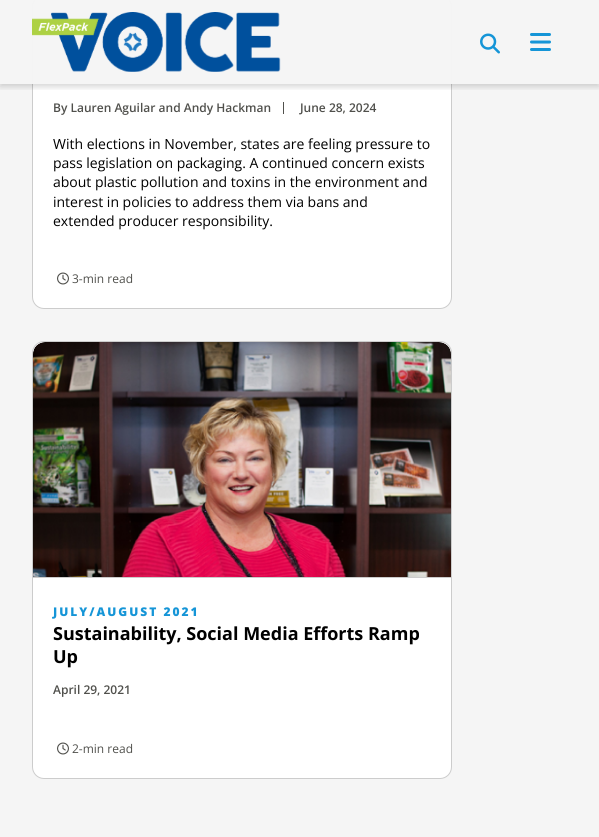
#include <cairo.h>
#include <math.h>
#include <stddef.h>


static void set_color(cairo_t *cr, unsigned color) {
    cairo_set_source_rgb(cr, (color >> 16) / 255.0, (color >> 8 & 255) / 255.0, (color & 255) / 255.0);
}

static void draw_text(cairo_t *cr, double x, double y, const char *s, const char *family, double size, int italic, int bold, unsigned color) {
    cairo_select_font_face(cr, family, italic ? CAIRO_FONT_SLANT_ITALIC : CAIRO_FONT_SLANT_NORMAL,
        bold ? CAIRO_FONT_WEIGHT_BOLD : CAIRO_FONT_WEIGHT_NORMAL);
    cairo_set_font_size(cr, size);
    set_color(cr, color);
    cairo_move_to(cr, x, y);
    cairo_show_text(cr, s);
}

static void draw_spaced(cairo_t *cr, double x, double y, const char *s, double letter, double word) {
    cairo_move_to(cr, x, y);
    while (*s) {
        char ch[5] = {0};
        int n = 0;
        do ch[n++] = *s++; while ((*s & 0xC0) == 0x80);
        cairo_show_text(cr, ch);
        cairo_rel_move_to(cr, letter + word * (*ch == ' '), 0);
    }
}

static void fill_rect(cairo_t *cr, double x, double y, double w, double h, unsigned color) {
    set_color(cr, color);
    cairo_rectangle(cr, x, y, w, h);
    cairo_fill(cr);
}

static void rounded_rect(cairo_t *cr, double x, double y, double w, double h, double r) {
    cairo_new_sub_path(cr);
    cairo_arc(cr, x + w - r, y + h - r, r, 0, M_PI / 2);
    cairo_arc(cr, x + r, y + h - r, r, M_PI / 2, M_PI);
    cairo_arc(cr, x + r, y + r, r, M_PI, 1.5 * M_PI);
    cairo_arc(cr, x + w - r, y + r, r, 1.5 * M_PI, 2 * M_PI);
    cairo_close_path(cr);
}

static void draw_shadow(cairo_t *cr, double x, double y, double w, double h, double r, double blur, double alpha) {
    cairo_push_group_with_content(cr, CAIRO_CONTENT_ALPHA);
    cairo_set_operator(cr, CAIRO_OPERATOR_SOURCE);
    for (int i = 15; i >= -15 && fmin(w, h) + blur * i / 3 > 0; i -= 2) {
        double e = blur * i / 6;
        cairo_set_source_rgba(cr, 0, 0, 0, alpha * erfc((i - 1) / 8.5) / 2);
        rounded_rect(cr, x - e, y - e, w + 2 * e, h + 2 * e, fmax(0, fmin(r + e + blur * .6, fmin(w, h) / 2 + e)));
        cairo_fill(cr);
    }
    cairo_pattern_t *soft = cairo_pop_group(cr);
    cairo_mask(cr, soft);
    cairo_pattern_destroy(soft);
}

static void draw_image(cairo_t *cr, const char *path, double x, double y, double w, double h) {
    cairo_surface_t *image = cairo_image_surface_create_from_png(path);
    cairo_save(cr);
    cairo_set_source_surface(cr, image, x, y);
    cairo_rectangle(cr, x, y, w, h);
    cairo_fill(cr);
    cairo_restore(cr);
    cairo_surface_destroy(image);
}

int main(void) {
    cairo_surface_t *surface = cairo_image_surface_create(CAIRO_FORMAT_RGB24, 599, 837);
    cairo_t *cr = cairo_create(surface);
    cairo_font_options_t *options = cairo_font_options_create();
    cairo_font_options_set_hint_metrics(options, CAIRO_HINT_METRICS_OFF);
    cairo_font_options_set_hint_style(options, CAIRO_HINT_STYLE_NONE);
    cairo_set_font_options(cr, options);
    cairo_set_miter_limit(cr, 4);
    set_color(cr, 0xF5F5F5);
    cairo_paint(cr);
    set_color(cr, 0xFFFFFF);
    rounded_rect(cr, 32.5, -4.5, 419, 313, 11.5);
    cairo_fill_preserve(cr);
    set_color(cr, 0xCCCCCC);
    cairo_set_line_width(cr, 1);
    cairo_stroke(cr);
    cairo_save(cr);
    cairo_rectangle(cr, 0, 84, 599, 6);
    cairo_clip(cr);
    set_color(cr, 0x000000);
    draw_shadow(cr, 0, 3, 599, 84, 0, 3, 0.16);
    cairo_restore(cr);
    cairo_set_source_rgba(cr, 0.961, 0.961, 0.961, 0.97);
    cairo_rectangle(cr, 32, 0, 420, 84);
    cairo_fill(cr);
    draw_image(cr, "assets/img1.png", 32, 12, 249, 60);
    draw_image(cr, "assets/img2.png", 480, 33, 20, 21);
    draw_image(cr, "assets/img3.png", 530, 33, 21, 18);
    fill_rect(cr, 283, 102, 1, 12, 0x50504C);
    draw_text(cr, 53, 112, "By Lauren Aguilar and Andy Hackman", "Open Sans SemiBold", 12, 0, 0, 0x50504C);
    draw_text(cr, 300, 112, "June 28, 2024", "Open Sans SemiBold", 12, 0, 0, 0x50504C);
    draw_text(cr, 53, 149, "With elections in November, states are feeling pressure to", "Open Sans", 14, 0, 0, 0x000000);
    draw_text(cr, 53, 168, "pass legislation on packaging. A continued concern exists", "Open Sans", 14, 0, 0, 0x000000);
    draw_text(cr, 53, 187, "about plastic pollution and toxins in the environment and", "Open Sans", 14, 0, 0, 0x000000);
    draw_text(cr, 53, 207, "interest in policies to address them via bans and", "Open Sans", 14, 0, 0, 0x000000);
    draw_text(cr, 53, 226, "extended producer responsibility.", "Open Sans", 14, 0, 0, 0x000000);
    draw_image(cr, "assets/img4.png", 57, 272, 12, 13);
    draw_text(cr, 72, 283, "3-min read", "Open Sans", 12, 0, 0, 0x50504C);
    set_color(cr, 0xFFFFFF);
    rounded_rect(cr, 32.5, 341.5, 419, 437, 11.5);
    cairo_fill_preserve(cr);
    set_color(cr, 0xCCCCCC);
    cairo_stroke(cr);
    fill_rect(cr, 33, 577, 418, 1, 0xCCCCCC);
    draw_image(cr, "assets/img5.png", 33, 342, 418, 235);
    cairo_select_font_face(cr, "Open Sans ExtraBold", CAIRO_FONT_SLANT_NORMAL, CAIRO_FONT_WEIGHT_NORMAL);
    set_color(cr, 0x1595D7);
    draw_spaced(cr, 53, 616, "JULY/AUGUST 2021", 2, 0);
    draw_text(cr, 53, 640, "Sustainability, Social Media Efforts Ramp", "Open Sans", 18, 0, 1, 0x000000);
    draw_text(cr, 53, 663, "Up", "Open Sans", 18, 0, 1, 0x000000);
    draw_text(cr, 53, 694, "April 29, 2021", "Open Sans SemiBold", 12, 0, 0, 0x50504C);
    draw_image(cr, "assets/img4.png", 57, 742, 12, 13);
    draw_text(cr, 72, 753, "2-min read", "Open Sans", 12, 0, 0, 0x50504C);
    cairo_surface_write_to_png(surface, "output.png");
    cairo_font_options_destroy(options);
    cairo_destroy(cr);
    cairo_surface_destroy(surface);
    return 0;
}
